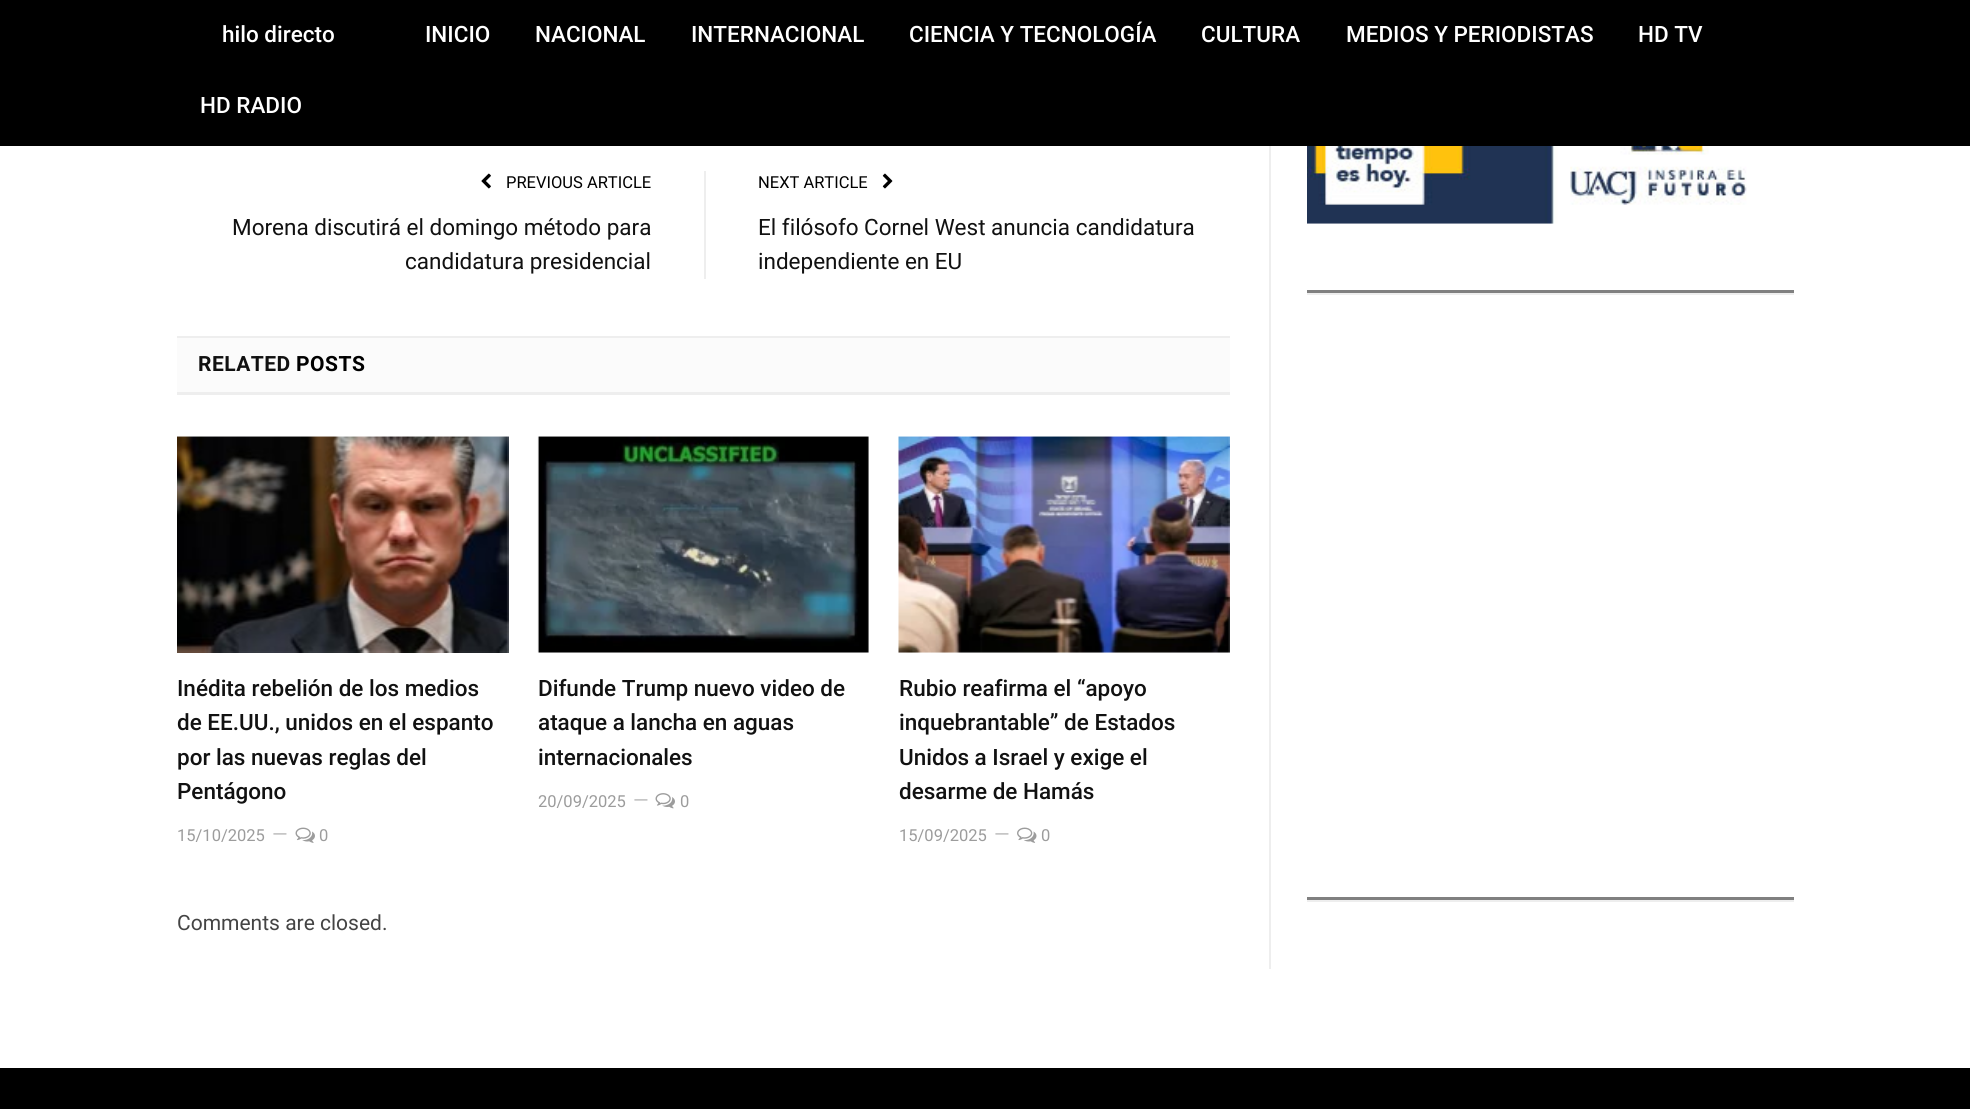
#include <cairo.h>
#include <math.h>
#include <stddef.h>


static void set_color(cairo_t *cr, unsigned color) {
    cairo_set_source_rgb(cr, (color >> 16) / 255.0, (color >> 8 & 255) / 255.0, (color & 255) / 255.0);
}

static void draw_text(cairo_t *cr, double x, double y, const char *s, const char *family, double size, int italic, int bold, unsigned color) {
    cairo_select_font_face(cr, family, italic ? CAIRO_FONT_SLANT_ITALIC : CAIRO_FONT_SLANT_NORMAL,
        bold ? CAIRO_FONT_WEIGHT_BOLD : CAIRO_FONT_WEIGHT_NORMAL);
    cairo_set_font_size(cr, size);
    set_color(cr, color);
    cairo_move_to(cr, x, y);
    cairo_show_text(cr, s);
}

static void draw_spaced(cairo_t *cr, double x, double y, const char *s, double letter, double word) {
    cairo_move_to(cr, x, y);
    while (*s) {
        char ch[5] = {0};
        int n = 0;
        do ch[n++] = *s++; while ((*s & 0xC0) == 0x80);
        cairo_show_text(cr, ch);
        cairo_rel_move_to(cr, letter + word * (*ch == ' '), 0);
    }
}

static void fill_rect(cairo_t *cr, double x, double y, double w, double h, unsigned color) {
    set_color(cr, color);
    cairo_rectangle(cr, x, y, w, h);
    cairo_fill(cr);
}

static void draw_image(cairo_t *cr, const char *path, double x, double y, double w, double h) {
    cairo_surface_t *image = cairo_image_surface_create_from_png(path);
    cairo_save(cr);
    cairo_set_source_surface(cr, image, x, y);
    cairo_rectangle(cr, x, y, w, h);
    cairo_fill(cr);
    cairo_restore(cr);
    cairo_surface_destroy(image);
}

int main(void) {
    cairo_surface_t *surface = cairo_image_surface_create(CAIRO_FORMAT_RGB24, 1970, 1109);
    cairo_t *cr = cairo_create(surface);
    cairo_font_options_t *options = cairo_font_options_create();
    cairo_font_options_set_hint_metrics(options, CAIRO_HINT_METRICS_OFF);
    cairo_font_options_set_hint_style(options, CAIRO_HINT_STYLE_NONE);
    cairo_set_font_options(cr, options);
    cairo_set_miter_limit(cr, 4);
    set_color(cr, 0xFFFFFF);
    cairo_paint(cr);
    fill_rect(cr, 0, 0, 1970, 146, 0x000000);
    draw_text(cr, 222, 42, "hilo directo", "Roboto Medium", 22.5, 0, 0, 0xFFFFFF);
    draw_text(cr, 425, 42, "INICIO", "Roboto Medium", 22.5, 0, 0, 0xFFFFFF);
    draw_text(cr, 535, 42, "NACIONAL", "Roboto Medium", 22.5, 0, 0, 0xFFFFFF);
    draw_text(cr, 691, 42, "INTERNACIONAL", "Roboto Medium", 22.5, 0, 0, 0xFFFFFF);
    draw_text(cr, 909, 42, "CIENCIA Y TECNOLOGÍA", "Roboto Medium", 22.5, 0, 0, 0xFFFFFF);
    draw_text(cr, 1201, 42, "CULTURA", "Roboto Medium", 22.5, 0, 0, 0xFFFFFF);
    draw_text(cr, 1346, 42, "MEDIOS Y PERIODISTAS", "Roboto Medium", 22.5, 0, 0, 0xFFFFFF);
    draw_text(cr, 1638, 42, "HD TV", "Roboto Medium", 22.5, 0, 0, 0xFFFFFF);
    draw_text(cr, 200, 113, "HD RADIO", "Roboto Medium", 22.5, 0, 0, 0xFFFFFF);
    draw_image(cr, "assets/img1.png", 481, 173, 10, 16);
    draw_text(cr, 506, 188, "PREVIOUS ARTICLE", "Roboto", 16.5, 0, 0, 0x000000);
    draw_text(cr, 232, 235, "Morena discutirá el domingo método para", "Roboto", 22.5, 0, 0, 0x111111);
    draw_text(cr, 405, 269, "candidatura presidencial", "Roboto", 22.5, 0, 0, 0x111111);
    fill_rect(cr, 704, 171, 2, 108, 0xEEEEEE);
    draw_text(cr, 758, 188, "NEXT ARTICLE", "Roboto", 16.5, 0, 0, 0x000000);
    draw_image(cr, "assets/img2.png", 882, 173, 11, 16);
    draw_text(cr, 758, 235, "El filósofo Cornel West anuncia candidatura", "Roboto", 22.5, 0, 0, 0x111111);
    draw_text(cr, 758, 269, "independiente en EU", "Roboto", 22.5, 0, 0, 0x111111);
    fill_rect(cr, 177, 338, 1053, 54, 0xFBFBFB);
    fill_rect(cr, 177, 336, 1053, 2, 0xEEEEEE);
    fill_rect(cr, 177, 392, 1053, 3, 0xEEEEEE);
    cairo_select_font_face(cr, "Roboto", CAIRO_FONT_SLANT_NORMAL, CAIRO_FONT_WEIGHT_BOLD);
    cairo_set_font_size(cr, 21);
    set_color(cr, 0x111111);
    draw_spaced(cr, 198, 371, "RELATED", 0.5, 0);
    set_color(cr, 0x000000);
    draw_spaced(cr, 296, 371, "POSTS", 0.5, 0);
    draw_image(cr, "assets/img3.png", 177, 436, 332, 217);
    draw_text(cr, 177, 696, "Inédita rebelión de los medios", "Roboto Medium", 22.5, 0, 0, 0x111111);
    draw_text(cr, 177, 730, "de EE.UU., unidos en el espanto", "Roboto Medium", 22.5, 0, 0, 0x111111);
    draw_text(cr, 177, 765, "por las nuevas reglas del", "Roboto Medium", 22.5, 0, 0, 0x111111);
    draw_text(cr, 177, 799, "Pentágono", "Roboto Medium", 22.5, 0, 0, 0x111111);
    draw_text(cr, 177, 841, "15/10/2025", "Roboto", 16.5, 0, 0, 0x9C9C9C);
    draw_text(cr, 272, 841, "—", "Roboto", 20, 0, 0, 0xBCBCBC);
    draw_image(cr, "assets/img4.png", 295, 827, 20, 16);
    draw_text(cr, 319, 841, "0", "Roboto", 16.5, 0, 0, 0x9C9C9C);
    draw_image(cr, "assets/img5.png", 537, 436, 332, 217);
    draw_text(cr, 538, 696, "Difunde Trump nuevo video de", "Roboto Medium", 22.5, 0, 0, 0x111111);
    draw_text(cr, 538, 730, "ataque a lancha en aguas", "Roboto Medium", 22.5, 0, 0, 0x111111);
    draw_text(cr, 538, 765, "internacionales", "Roboto Medium", 22.5, 0, 0, 0x111111);
    draw_text(cr, 538, 807, "20/09/2025", "Roboto", 16.5, 0, 0, 0x9C9C9C);
    draw_text(cr, 633, 807, "—", "Roboto", 20, 0, 0, 0xBCBCBC);
    draw_image(cr, "assets/img6.png", 655, 793, 20, 16);
    draw_text(cr, 680, 807, "0", "Roboto", 16.5, 0, 0, 0x9C9C9C);
    draw_image(cr, "assets/img7.png", 898, 436, 332, 217);
    draw_text(cr, 899, 696, "Rubio reafirma el “apoyo", "Roboto Medium", 22.5, 0, 0, 0x111111);
    draw_text(cr, 899, 730, "inquebrantable” de Estados", "Roboto Medium", 22.5, 0, 0, 0x111111);
    draw_text(cr, 899, 765, "Unidos a Israel y exige el", "Roboto Medium", 22.5, 0, 0, 0x111111);
    draw_text(cr, 899, 799, "desarme de Hamás", "Roboto Medium", 22.5, 0, 0, 0x111111);
    draw_text(cr, 899, 841, "15/09/2025", "Roboto", 16.5, 0, 0, 0x9C9C9C);
    draw_text(cr, 994, 841, "—", "Roboto", 20, 0, 0, 0xBCBCBC);
    draw_image(cr, "assets/img8.png", 1017, 827, 20, 16);
    draw_text(cr, 1041, 841, "0", "Roboto", 16.5, 0, 0, 0x9C9C9C);
    draw_text(cr, 177, 930, "Comments are closed.", "Roboto", 21, 0, 0, 0x444444);
    fill_rect(cr, 1269, 146, 2, 823, 0xEEEEEE);
    draw_image(cr, "assets/img9.png", 1307, 146, 471, 78);
    fill_rect(cr, 1307, 293, 487, 2, 0xEEEEEE);
    fill_rect(cr, 1307, 290, 487, 3, 0x808080);
    fill_rect(cr, 1307, 900, 487, 2, 0xEEEEEE);
    fill_rect(cr, 1307, 897, 487, 3, 0x808080);
    fill_rect(cr, 0, 1068, 1970, 41, 0x000000);
    cairo_surface_write_to_png(surface, "output.png");
    cairo_font_options_destroy(options);
    cairo_destroy(cr);
    cairo_surface_destroy(surface);
    return 0;
}
